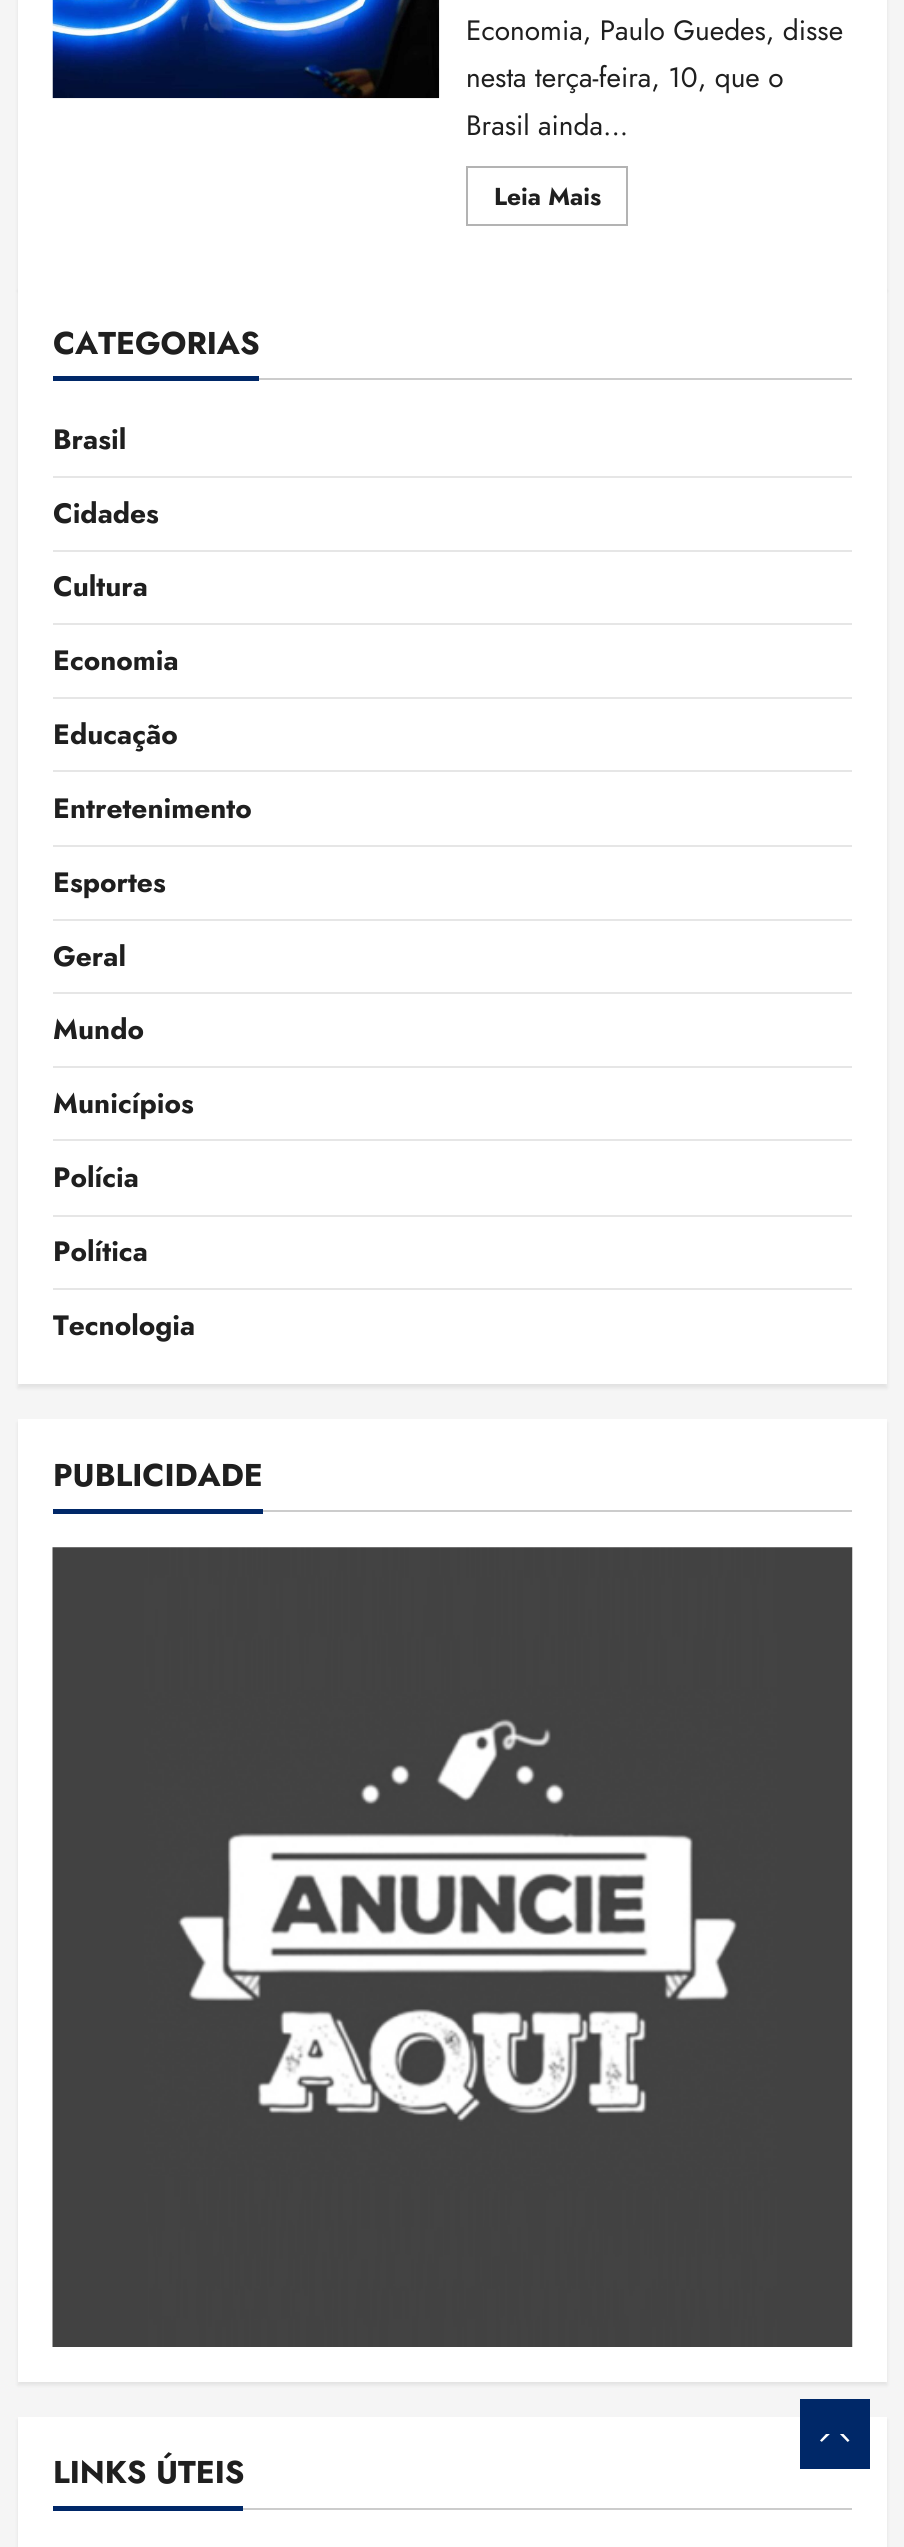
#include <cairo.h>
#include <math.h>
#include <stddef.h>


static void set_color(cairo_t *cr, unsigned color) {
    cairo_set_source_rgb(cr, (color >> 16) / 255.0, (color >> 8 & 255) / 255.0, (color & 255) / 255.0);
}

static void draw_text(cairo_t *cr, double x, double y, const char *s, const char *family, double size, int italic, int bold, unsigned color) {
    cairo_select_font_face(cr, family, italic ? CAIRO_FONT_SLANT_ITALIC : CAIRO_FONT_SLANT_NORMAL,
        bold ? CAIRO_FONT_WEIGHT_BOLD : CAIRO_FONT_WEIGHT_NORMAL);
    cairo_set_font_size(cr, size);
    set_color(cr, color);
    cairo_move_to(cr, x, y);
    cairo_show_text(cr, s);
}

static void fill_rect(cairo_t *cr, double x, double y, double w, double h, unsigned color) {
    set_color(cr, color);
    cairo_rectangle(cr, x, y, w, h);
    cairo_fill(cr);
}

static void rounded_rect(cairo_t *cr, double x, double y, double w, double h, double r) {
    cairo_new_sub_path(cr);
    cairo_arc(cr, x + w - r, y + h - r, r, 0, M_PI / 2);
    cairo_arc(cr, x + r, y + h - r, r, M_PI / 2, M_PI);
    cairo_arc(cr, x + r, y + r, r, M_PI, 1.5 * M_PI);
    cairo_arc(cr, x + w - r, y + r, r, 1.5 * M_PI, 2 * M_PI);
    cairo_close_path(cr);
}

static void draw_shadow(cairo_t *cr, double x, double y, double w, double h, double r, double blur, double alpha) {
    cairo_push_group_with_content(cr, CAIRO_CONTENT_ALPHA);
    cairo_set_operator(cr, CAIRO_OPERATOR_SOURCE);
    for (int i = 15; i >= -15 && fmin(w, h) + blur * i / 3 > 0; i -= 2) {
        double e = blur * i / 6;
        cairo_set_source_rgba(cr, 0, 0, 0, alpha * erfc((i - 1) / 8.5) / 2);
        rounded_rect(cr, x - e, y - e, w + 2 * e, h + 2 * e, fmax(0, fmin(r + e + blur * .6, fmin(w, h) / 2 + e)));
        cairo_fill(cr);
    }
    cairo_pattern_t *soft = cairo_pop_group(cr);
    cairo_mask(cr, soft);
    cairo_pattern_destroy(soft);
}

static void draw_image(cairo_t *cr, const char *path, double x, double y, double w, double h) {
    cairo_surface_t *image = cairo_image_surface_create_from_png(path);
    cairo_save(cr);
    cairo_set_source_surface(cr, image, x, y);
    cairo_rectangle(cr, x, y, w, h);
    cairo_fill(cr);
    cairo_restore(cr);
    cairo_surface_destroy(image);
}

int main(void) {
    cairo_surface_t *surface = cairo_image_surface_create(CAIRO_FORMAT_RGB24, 904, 2547);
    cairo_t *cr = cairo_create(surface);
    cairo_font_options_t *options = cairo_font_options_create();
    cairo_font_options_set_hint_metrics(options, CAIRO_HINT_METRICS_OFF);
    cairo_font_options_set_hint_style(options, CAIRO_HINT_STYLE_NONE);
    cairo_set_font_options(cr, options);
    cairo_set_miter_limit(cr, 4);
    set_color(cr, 0xF5F5F5);
    cairo_paint(cr);
    set_color(cr, 0x000000);
    draw_shadow(cr, 18, -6, 869, 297, 0, 2, 0.08);
    fill_rect(cr, 18, 0, 869, 287, 0xFFFFFF);
    draw_image(cr, "assets/img1.png", 52, 0, 388, 99);
    draw_text(cr, 466, 40, "Economia, Paulo Guedes, disse", "Jost", 28, 0, 0, 0x1F1F1F);
    draw_text(cr, 466, 87, "nesta terça-feira, 10, que o", "Jost", 28, 0, 0, 0x1F1F1F);
    draw_text(cr, 466, 135, "Brasil ainda...", "Jost", 28, 0, 0, 0x1F1F1F);
    cairo_rectangle(cr, 467, 167, 160, 58);
    set_color(cr, 0xB3B3B3);
    cairo_stroke(cr);
    draw_text(cr, 494, 205, "Leia Mais", "Jost", 24.5, 0, 1, 0x1F1F1F);
    set_color(cr, 0x000000);
    draw_shadow(cr, 18, 291, 869, 1097, 0, 2, 0.08);
    fill_rect(cr, 18, 287, 869, 1097, 0xFFFFFF);
    fill_rect(cr, 259, 378, 593, 2, 0xCCCCCC);
    draw_text(cr, 53, 354, "CATEGORIAS", "Jost", 31.5, 0, 1, 0x1F1F1F);
    fill_rect(cr, 53, 376, 206, 5, 0x002868);
    fill_rect(cr, 53, 476, 799, 2, 0xE6E6E6);
    draw_text(cr, 53, 449, "Brasil", "Jost", 28, 0, 1, 0x1F1F1F);
    fill_rect(cr, 53, 550, 799, 2, 0xE6E6E6);
    draw_text(cr, 53, 523, "Cidades", "Jost", 28, 0, 1, 0x1F1F1F);
    fill_rect(cr, 53, 623, 799, 2, 0xE6E6E6);
    draw_text(cr, 53, 596, "Cultura", "Jost", 28, 0, 1, 0x1F1F1F);
    fill_rect(cr, 53, 697, 799, 2, 0xE6E6E6);
    draw_text(cr, 53, 670, "Economia", "Jost", 28, 0, 1, 0x1F1F1F);
    fill_rect(cr, 53, 770, 799, 2, 0xE6E6E6);
    draw_text(cr, 53, 744, "Educação", "Jost", 28, 0, 1, 0x1F1F1F);
    fill_rect(cr, 53, 845, 799, 2, 0xE6E6E6);
    draw_text(cr, 53, 818, "Entretenimento", "Jost", 28, 0, 1, 0x1F1F1F);
    fill_rect(cr, 53, 919, 799, 2, 0xE6E6E6);
    draw_text(cr, 53, 892, "Esportes", "Jost", 28, 0, 1, 0x1F1F1F);
    fill_rect(cr, 53, 992, 799, 2, 0xE6E6E6);
    draw_text(cr, 53, 966, "Geral", "Jost", 28, 0, 1, 0x1F1F1F);
    fill_rect(cr, 53, 1066, 799, 2, 0xE6E6E6);
    draw_text(cr, 53, 1039, "Mundo", "Jost", 28, 0, 1, 0x1F1F1F);
    fill_rect(cr, 53, 1139, 799, 2, 0xE6E6E6);
    draw_text(cr, 53, 1113, "Municípios", "Jost", 28, 0, 1, 0x1F1F1F);
    fill_rect(cr, 53, 1215, 799, 2, 0xE6E6E6);
    draw_text(cr, 53, 1187, "Polícia", "Jost", 28, 0, 1, 0x1F1F1F);
    fill_rect(cr, 53, 1288, 799, 2, 0xE6E6E6);
    draw_text(cr, 53, 1261, "Política", "Jost", 28, 0, 1, 0x1F1F1F);
    draw_text(cr, 53, 1335, "Tecnologia", "Jost", 28, 0, 1, 0x1F1F1F);
    set_color(cr, 0x000000);
    draw_shadow(cr, 18, 1423, 869, 962, 0, 2, 0.08);
    fill_rect(cr, 18, 1419, 869, 963, 0xFFFFFF);
    fill_rect(cr, 263, 1510, 589, 2, 0xCCCCCC);
    draw_text(cr, 53, 1486, "PUBLICIDADE", "Jost", 31.5, 0, 1, 0x1F1F1F);
    fill_rect(cr, 53, 1509, 210, 5, 0x002868);
    draw_image(cr, "assets/img2.png", 52, 1547, 801, 800);
    set_color(cr, 0x000000);
    draw_shadow(cr, 18, 2420, 869, 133, 0, 2, 0.08);
    fill_rect(cr, 18, 2417, 869, 130, 0xFFFFFF);
    fill_rect(cr, 243, 2508, 609, 2, 0xCCCCCC);
    draw_text(cr, 53, 2483, "LINKS ÚTEIS", "Jost", 31.5, 0, 1, 0x1F1F1F);
    fill_rect(cr, 53, 2506, 190, 5, 0x002868);
    fill_rect(cr, 800, 2399, 70, 70, 0x002868);
    set_color(cr, 0xFFFFFF);
    cairo_new_path(cr);
    cairo_move_to(cr, 826, 2443);
    cairo_line_to(cr, 843.5, 2443);
    cairo_curve_to(cr, 846, 2443, 848, 2442, 849.5, 2440.5);
    cairo_line_to(cr, 843.5, 2434);
    cairo_line_to(cr, 826, 2434);
    cairo_line_to(cr, 820, 2440.5);
    cairo_curve_to(cr, 821.5, 2442, 823.5, 2443, 826, 2443);
    cairo_close_path(cr);
    cairo_fill(cr);
    set_color(cr, 0x002868);
    cairo_new_path(cr);
    cairo_move_to(cr, 852, 2446.5);
    cairo_line_to(cr, 817, 2446.5);
    cairo_line_to(cr, 835, 2429);
    cairo_close_path(cr);
    cairo_fill(cr);
    cairo_surface_write_to_png(surface, "output.png");
    cairo_font_options_destroy(options);
    cairo_destroy(cr);
    cairo_surface_destroy(surface);
    return 0;
}
